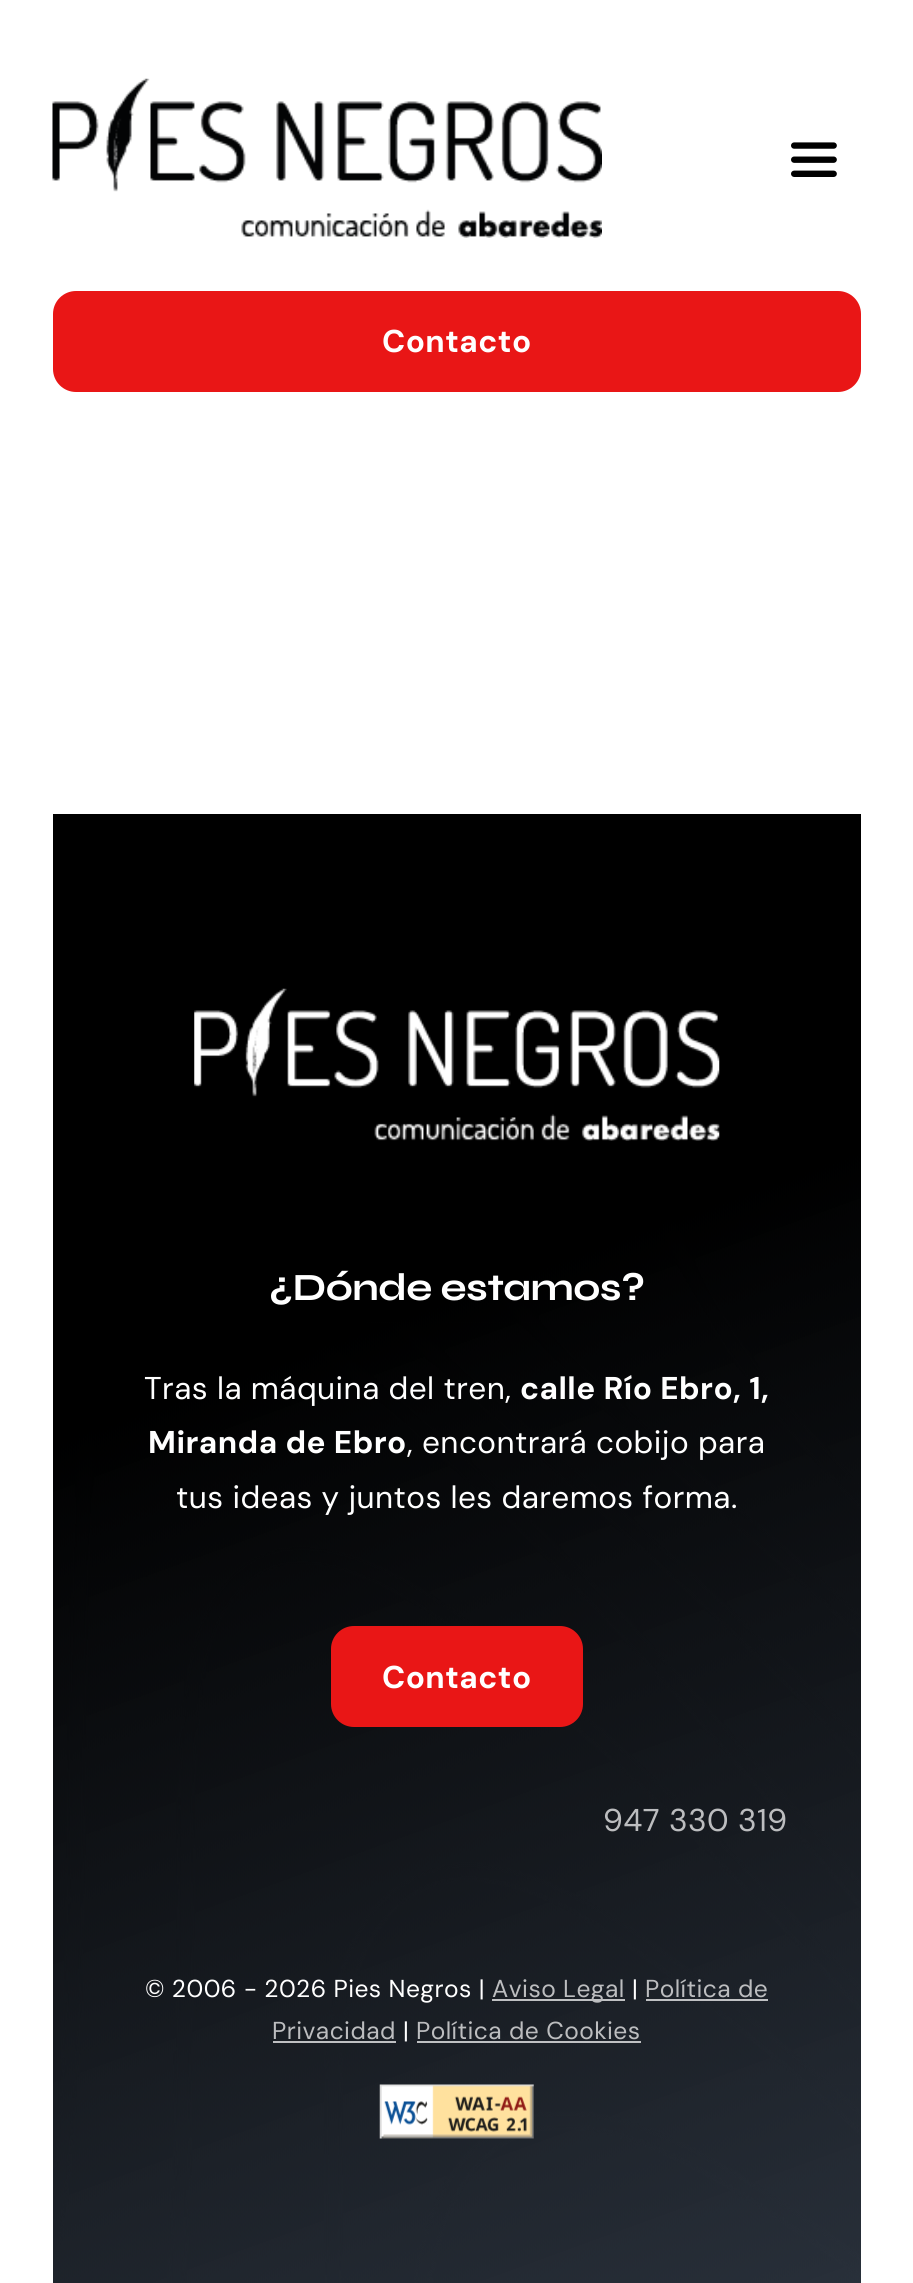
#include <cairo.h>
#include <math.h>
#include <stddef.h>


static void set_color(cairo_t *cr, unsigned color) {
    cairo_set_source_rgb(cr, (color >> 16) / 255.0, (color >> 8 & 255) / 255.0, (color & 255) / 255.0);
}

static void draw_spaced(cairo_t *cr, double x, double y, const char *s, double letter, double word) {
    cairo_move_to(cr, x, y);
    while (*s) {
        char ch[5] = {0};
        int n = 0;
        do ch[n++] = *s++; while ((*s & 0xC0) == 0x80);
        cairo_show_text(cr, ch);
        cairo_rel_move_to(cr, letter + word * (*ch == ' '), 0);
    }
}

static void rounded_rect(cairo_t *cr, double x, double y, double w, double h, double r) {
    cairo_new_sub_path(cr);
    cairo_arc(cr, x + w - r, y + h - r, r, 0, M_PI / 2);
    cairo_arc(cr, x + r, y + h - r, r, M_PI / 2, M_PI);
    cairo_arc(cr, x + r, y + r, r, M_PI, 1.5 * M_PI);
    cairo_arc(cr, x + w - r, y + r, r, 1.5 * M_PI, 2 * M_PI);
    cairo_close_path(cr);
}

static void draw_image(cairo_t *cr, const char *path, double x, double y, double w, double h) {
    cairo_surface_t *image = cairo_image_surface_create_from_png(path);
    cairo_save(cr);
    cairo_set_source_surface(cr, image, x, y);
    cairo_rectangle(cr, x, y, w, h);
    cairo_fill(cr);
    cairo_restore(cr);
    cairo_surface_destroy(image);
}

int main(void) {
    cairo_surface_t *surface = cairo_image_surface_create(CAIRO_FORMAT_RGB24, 913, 2283);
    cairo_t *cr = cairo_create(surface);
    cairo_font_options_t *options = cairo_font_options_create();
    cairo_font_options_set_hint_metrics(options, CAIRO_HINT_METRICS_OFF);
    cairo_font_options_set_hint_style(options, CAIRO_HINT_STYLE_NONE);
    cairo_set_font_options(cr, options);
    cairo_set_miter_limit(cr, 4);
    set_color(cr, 0xFFFFFF);
    cairo_paint(cr);
    draw_image(cr, "assets/img1.png", 52, 78, 550, 160);
    draw_image(cr, "assets/img2.png", 791, 142, 46, 35);
    set_color(cr, 0xE91616);
    rounded_rect(cr, 53, 291, 808, 101, 23);
    cairo_fill(cr);
    cairo_select_font_face(cr, "DM Sans", CAIRO_FONT_SLANT_NORMAL, CAIRO_FONT_WEIGHT_BOLD);
    cairo_set_font_size(cr, 31.5);
    set_color(cr, 0xFFFFFF);
    draw_spaced(cr, 382, 352, "Contacto", 0.45, 0);
    draw_image(cr, "assets/img3.png", 53, 814, 808, 1469);
    draw_image(cr, "assets/img4.png", 194, 988, 526, 153);
    cairo_select_font_face(cr, "Syne", CAIRO_FONT_SLANT_NORMAL, CAIRO_FONT_WEIGHT_BOLD);
    cairo_set_font_size(cr, 38.5);
    draw_spaced(cr, 269, 1300, "¿Dónde estamos?", -0.6, 0);
    cairo_select_font_face(cr, "DM Sans", CAIRO_FONT_SLANT_NORMAL, CAIRO_FONT_WEIGHT_NORMAL);
    cairo_set_font_size(cr, 31.5);
    draw_spaced(cr, 144, 1399, "Tras la máquina del tren,", 0.45, 0);
    cairo_select_font_face(cr, "DM Sans", CAIRO_FONT_SLANT_NORMAL, CAIRO_FONT_WEIGHT_BOLD);
    draw_spaced(cr, 520, 1399, "calle Río Ebro, 1,", 0.45, 0);
    draw_spaced(cr, 148, 1453, "Miranda de Ebro", 0.45, 0);
    cairo_select_font_face(cr, "DM Sans", CAIRO_FONT_SLANT_NORMAL, CAIRO_FONT_WEIGHT_NORMAL);
    draw_spaced(cr, 407, 1453, ", encontrará cobijo para", 0.45, 0);
    draw_spaced(cr, 176, 1508, "tus ideas y juntos les daremos forma.", 0.45, 0);
    set_color(cr, 0xE91616);
    rounded_rect(cr, 331, 1626, 252, 101, 23);
    cairo_fill(cr);
    cairo_select_font_face(cr, "DM Sans", CAIRO_FONT_SLANT_NORMAL, CAIRO_FONT_WEIGHT_BOLD);
    set_color(cr, 0xFFFFFF);
    draw_spaced(cr, 382, 1688, "Contacto", 0.45, 0);
    cairo_select_font_face(cr, "DM Sans", CAIRO_FONT_SLANT_NORMAL, CAIRO_FONT_WEIGHT_NORMAL);
    set_color(cr, 0xBCBDBF);
    draw_spaced(cr, 603, 1831, "947 330 319", 0.45, 0);
    cairo_set_font_size(cr, 24.5);
    set_color(cr, 0xFFFFFF);
    draw_spaced(cr, 145, 1997, "© 2006 - 2026 Pies Negros |", 0.45, 0);
    cairo_set_source_rgba(cr, 1, 1, 1, 0.72);
    cairo_rectangle(cr, 492, 1999, 133, 2);
    cairo_fill(cr);
    set_color(cr, 0xBCBDBF);
    draw_spaced(cr, 492, 1997, "Aviso Legal", 0.45, 0);
    set_color(cr, 0xFFFFFF);
    draw_spaced(cr, 632, 1997, "|", 0.45, 0);
    set_color(cr, 0xBCBDBF);
    draw_spaced(cr, 645, 1997, "Política de", 0.45, 0);
    cairo_set_source_rgba(cr, 1, 1, 1, 0.72);
    cairo_rectangle(cr, 646, 1999, 122, 2);
    cairo_fill(cr);
    set_color(cr, 0xBCBDBF);
    draw_spaced(cr, 272, 2039, "Privacidad", 0.45, 0);
    cairo_set_source_rgba(cr, 1, 1, 1, 0.72);
    cairo_rectangle(cr, 273, 2041, 123, 2);
    cairo_fill(cr);
    set_color(cr, 0xFFFFFF);
    draw_spaced(cr, 403, 2039, "|", 0.45, 0);
    set_color(cr, 0xBCBDBF);
    draw_spaced(cr, 416, 2039, "Política de Cookies", 0.45, 0);
    cairo_set_source_rgba(cr, 1, 1, 1, 0.72);
    cairo_rectangle(cr, 417, 2041, 224, 2);
    cairo_fill(cr);
    draw_image(cr, "assets/img5.png", 379, 2084, 155, 55);
    cairo_surface_write_to_png(surface, "output.png");
    cairo_font_options_destroy(options);
    cairo_destroy(cr);
    cairo_surface_destroy(surface);
    return 0;
}
